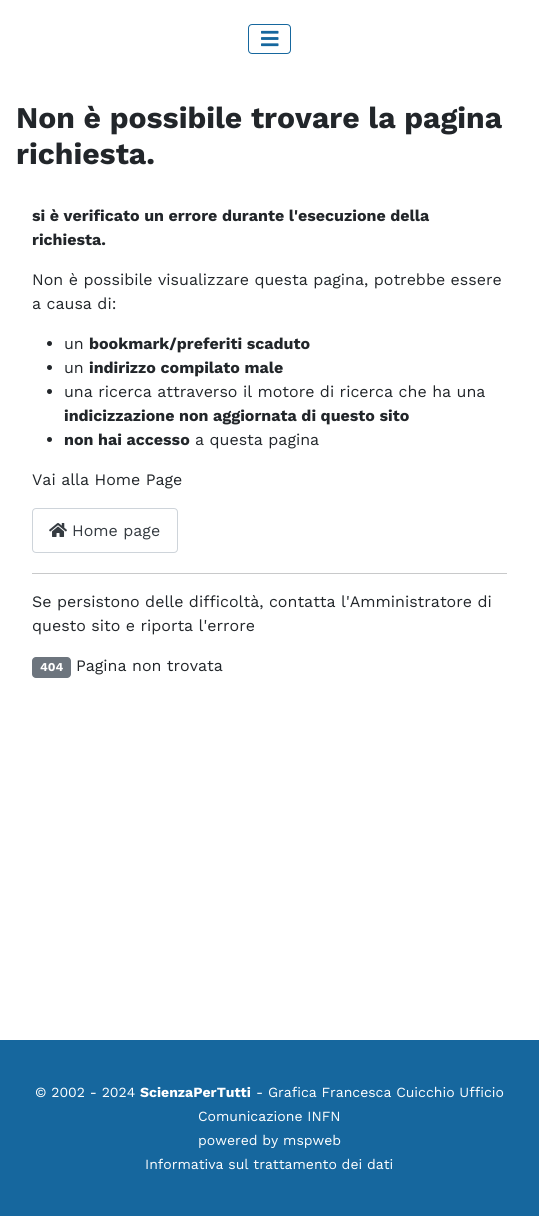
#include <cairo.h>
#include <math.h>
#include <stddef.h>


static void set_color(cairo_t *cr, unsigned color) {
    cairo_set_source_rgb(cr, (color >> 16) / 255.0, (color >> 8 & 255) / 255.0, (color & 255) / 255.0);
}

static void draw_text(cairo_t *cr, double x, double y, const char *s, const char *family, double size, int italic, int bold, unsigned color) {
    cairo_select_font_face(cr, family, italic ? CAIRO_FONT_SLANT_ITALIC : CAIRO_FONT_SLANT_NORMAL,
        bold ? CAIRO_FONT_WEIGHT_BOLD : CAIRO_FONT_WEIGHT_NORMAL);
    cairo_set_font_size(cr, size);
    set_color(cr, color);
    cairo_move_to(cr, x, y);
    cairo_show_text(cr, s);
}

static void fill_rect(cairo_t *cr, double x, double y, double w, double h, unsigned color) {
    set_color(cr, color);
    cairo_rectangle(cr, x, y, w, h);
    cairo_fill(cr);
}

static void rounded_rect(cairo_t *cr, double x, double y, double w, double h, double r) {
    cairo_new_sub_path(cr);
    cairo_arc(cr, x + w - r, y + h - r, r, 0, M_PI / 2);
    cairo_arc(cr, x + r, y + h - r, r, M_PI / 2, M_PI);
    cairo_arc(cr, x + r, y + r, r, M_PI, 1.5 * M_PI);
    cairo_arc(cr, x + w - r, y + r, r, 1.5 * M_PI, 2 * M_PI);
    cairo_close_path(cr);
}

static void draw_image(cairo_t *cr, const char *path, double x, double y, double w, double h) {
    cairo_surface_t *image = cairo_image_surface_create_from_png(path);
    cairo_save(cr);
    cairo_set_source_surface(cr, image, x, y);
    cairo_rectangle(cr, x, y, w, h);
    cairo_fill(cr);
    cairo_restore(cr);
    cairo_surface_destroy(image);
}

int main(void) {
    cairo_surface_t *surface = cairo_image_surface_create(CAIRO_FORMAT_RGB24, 539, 1216);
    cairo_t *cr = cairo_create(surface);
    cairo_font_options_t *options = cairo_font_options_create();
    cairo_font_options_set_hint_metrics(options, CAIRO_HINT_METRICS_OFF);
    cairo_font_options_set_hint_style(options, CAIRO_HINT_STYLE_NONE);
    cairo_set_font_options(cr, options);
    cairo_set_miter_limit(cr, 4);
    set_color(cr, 0xFFFFFF);
    cairo_paint(cr);
    rounded_rect(cr, 248.5, 24.5, 42, 29, 3.5);
    set_color(cr, 0x16679E);
    cairo_set_line_width(cr, 1);
    cairo_stroke(cr);
    draw_image(cr, "assets/img1.png", 261, 30, 18, 17);
    draw_text(cr, 16, 128, "Non è possibile trovare la pagina", "Work Sans", 30.1, 0, 1, 0x22262A);
    draw_text(cr, 16, 164, "richiesta.", "Work Sans", 30.1, 0, 1, 0x22262A);
    draw_text(cr, 32, 221, "si è verificato un errore durante l'esecuzione della", "Work Sans", 16, 0, 1, 0x22262A);
    draw_text(cr, 32, 245, "richiesta.", "Work Sans", 16, 0, 1, 0x22262A);
    draw_text(cr, 32, 285, "Non è possibile visualizzare questa pagina, potrebbe essere", "Work Sans", 16, 0, 0, 0x22262A);
    draw_text(cr, 32, 309, "a causa di:", "Work Sans", 16, 0, 0, 0x22262A);
    cairo_new_path(cr);
    cairo_arc(cr, 49.5, 343.5, 2.5, 0, 2 * M_PI);
    cairo_fill(cr);
    draw_text(cr, 64, 349, "un", "Work Sans", 16, 0, 0, 0x22262A);
    draw_text(cr, 89, 349, "bookmark/preferiti scaduto", "Work Sans", 16, 0, 1, 0x22262A);
    cairo_new_path(cr);
    cairo_arc(cr, 49.5, 367.5, 2.5, 0, 2 * M_PI);
    cairo_fill(cr);
    draw_text(cr, 64, 373, "un", "Work Sans", 16, 0, 0, 0x22262A);
    draw_text(cr, 89, 373, "indirizzo compilato male", "Work Sans", 16, 0, 1, 0x22262A);
    cairo_new_path(cr);
    cairo_arc(cr, 49.5, 391.5, 2.5, 0, 2 * M_PI);
    cairo_fill(cr);
    draw_text(cr, 64, 397, "una ricerca attraverso il motore di ricerca che ha una", "Work Sans", 16, 0, 0, 0x22262A);
    draw_text(cr, 64, 421, "indicizzazione non aggiornata di questo sito", "Work Sans", 16, 0, 1, 0x22262A);
    cairo_new_path(cr);
    cairo_arc(cr, 49.5, 439.5, 2.5, 0, 2 * M_PI);
    cairo_fill(cr);
    draw_text(cr, 64, 445, "non hai accesso", "Work Sans", 16, 0, 1, 0x22262A);
    draw_text(cr, 195, 445, "a questa pagina", "Work Sans", 16, 0, 0, 0x22262A);
    draw_text(cr, 32, 485, "Vai alla Home Page", "Work Sans", 16, 0, 0, 0x22262A);
    rounded_rect(cr, 32.5, 508.5, 145, 44, 3.5);
    set_color(cr, 0xCED4DA);
    cairo_stroke(cr);
    draw_image(cr, "assets/img2.png", 49, 523, 18, 14);
    draw_text(cr, 72, 536, "Home page", "Work Sans", 16, 0, 0, 0x353B41);
    fill_rect(cr, 32, 573, 475, 1, 0xC8C9CA);
    draw_text(cr, 32, 607, "Se persistono delle difficoltà, contatta l'Amministratore di", "Work Sans", 16, 0, 0, 0x22262A);
    draw_text(cr, 32, 631, "questo sito e riporta l'errore", "Work Sans", 16, 0, 0, 0x22262A);
    set_color(cr, 0x6D757E);
    rounded_rect(cr, 32, 657, 39, 21, 4);
    cairo_fill(cr);
    draw_text(cr, 40, 671, "404", "Work Sans", 12, 0, 1, 0xFFFFFF);
    draw_text(cr, 76, 671, "Pagina non trovata", "Work Sans", 16, 0, 0, 0x22262A);
    fill_rect(cr, 0, 1040, 539, 176, 0x16679E);
    draw_text(cr, 35, 1097, "© 2002 - 2024", "Work Sans", 14, 0, 0, 0xFFFFFF);
    draw_text(cr, 140, 1097, "ScienzaPerTutti", "Work Sans", 14, 0, 1, 0xFFFFFF);
    draw_text(cr, 256, 1097, "- Grafica Francesca Cuicchio Ufficio", "Work Sans", 14, 0, 0, 0xFFFFFF);
    draw_text(cr, 198, 1121, "Comunicazione INFN", "Work Sans", 14, 0, 0, 0xFFFFFF);
    draw_text(cr, 198, 1145, "powered by mspweb", "Work Sans", 14, 0, 0, 0xFFFFFF);
    draw_text(cr, 145, 1169, "Informativa sul trattamento dei dati", "Work Sans", 14, 0, 0, 0xFFFFFF);
    cairo_surface_write_to_png(surface, "output.png");
    cairo_font_options_destroy(options);
    cairo_destroy(cr);
    cairo_surface_destroy(surface);
    return 0;
}
